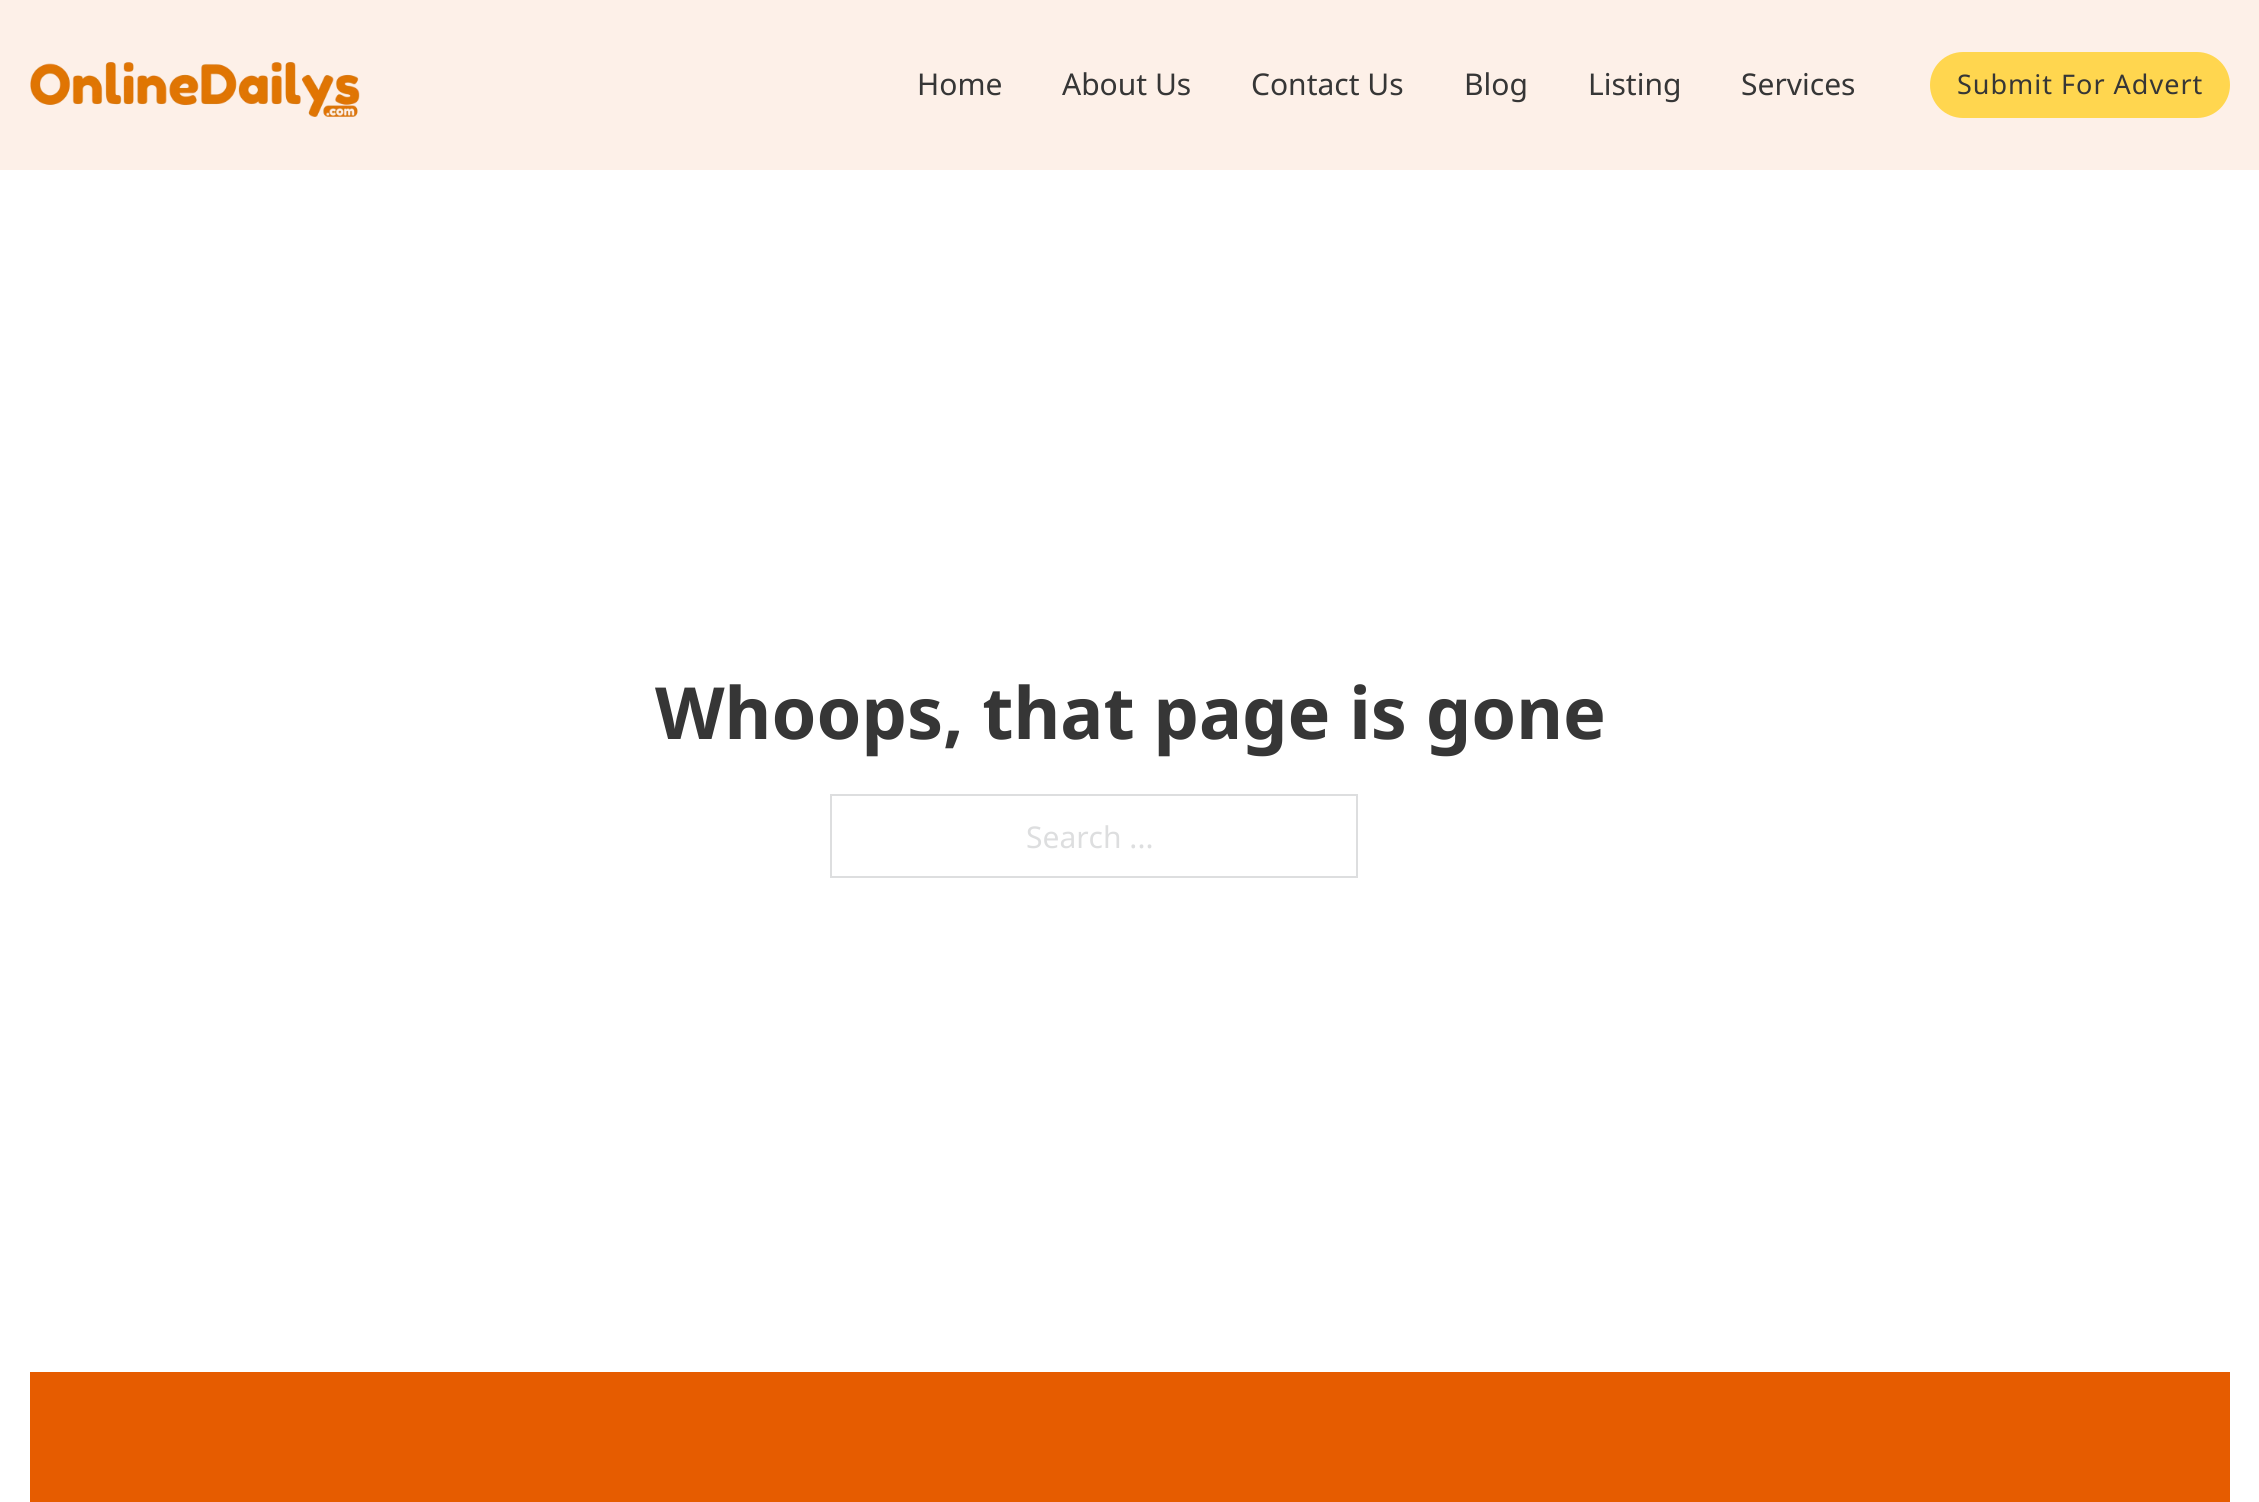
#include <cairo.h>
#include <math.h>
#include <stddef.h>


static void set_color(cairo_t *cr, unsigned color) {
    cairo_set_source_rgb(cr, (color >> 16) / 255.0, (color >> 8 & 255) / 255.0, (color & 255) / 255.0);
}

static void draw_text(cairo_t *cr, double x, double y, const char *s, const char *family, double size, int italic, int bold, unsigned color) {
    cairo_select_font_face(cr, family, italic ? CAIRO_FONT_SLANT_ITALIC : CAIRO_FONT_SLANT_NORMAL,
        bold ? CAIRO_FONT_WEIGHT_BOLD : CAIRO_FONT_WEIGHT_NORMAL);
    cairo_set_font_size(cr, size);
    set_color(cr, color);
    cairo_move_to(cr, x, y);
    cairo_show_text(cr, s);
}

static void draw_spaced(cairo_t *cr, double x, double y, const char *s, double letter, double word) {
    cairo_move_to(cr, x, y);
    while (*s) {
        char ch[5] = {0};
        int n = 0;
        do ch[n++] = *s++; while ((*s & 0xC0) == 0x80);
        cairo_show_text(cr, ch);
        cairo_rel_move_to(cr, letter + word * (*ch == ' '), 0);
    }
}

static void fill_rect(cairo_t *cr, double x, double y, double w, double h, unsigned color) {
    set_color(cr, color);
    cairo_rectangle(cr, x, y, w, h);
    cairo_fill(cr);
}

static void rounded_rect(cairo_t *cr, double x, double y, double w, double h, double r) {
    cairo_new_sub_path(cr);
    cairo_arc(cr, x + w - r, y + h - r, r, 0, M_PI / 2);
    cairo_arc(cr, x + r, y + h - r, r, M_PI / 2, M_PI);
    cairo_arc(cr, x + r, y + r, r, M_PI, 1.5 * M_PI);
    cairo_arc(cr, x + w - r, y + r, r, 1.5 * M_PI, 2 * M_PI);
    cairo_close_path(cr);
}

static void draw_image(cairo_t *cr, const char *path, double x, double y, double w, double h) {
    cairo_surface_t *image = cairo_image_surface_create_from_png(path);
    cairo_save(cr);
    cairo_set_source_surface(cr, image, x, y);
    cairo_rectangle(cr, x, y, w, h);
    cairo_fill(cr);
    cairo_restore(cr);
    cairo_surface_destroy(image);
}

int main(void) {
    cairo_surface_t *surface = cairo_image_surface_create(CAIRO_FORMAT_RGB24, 2259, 1502);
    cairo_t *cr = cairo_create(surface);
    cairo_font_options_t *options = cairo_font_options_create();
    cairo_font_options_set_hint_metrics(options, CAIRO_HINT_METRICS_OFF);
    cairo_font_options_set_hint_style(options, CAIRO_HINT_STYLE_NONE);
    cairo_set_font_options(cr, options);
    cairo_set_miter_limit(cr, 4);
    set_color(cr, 0xFFFFFF);
    cairo_paint(cr);
    fill_rect(cr, 0, 0, 2259, 170, 0xFDF0E8);
    draw_image(cr, "assets/img1.png", 30, 62, 330, 55);
    draw_text(cr, 917, 95, "Home", "Noto Sans", 30, 0, 0, 0x363636);
    draw_text(cr, 1062, 95, "About Us", "Noto Sans", 30, 0, 0, 0x363636);
    draw_text(cr, 1251, 95, "Contact Us", "Noto Sans", 30, 0, 0, 0x363636);
    draw_text(cr, 1464, 95, "Blog", "Noto Sans", 30, 0, 0, 0x363636);
    draw_text(cr, 1588, 95, "Listing", "Noto Sans", 30, 0, 0, 0x363636);
    draw_text(cr, 1741, 95, "Services", "Noto Sans", 30, 0, 0, 0x363636);
    set_color(cr, 0xFFD64F);
    rounded_rect(cr, 1930, 52, 300, 66, 33);
    cairo_fill(cr);
    cairo_set_font_size(cr, 27);
    set_color(cr, 0x363636);
    draw_spaced(cr, 1957, 94, "Submit For Advert", 1, 0);
    draw_text(cr, 655, 739, "Whoops, that page is gone", "Noto Sans", 72, 0, 1, 0x363636);
    cairo_rectangle(cr, 831, 795, 526, 82);
    set_color(cr, 0xDDDEDF);
    cairo_stroke(cr);
    draw_text(cr, 1026, 848, "Search ...", "Noto Sans", 30, 0, 0, 0xDDDEDF);
    fill_rect(cr, 30, 1372, 2200, 130, 0xE65C00);
    cairo_surface_write_to_png(surface, "output.png");
    cairo_font_options_destroy(options);
    cairo_destroy(cr);
    cairo_surface_destroy(surface);
    return 0;
}
